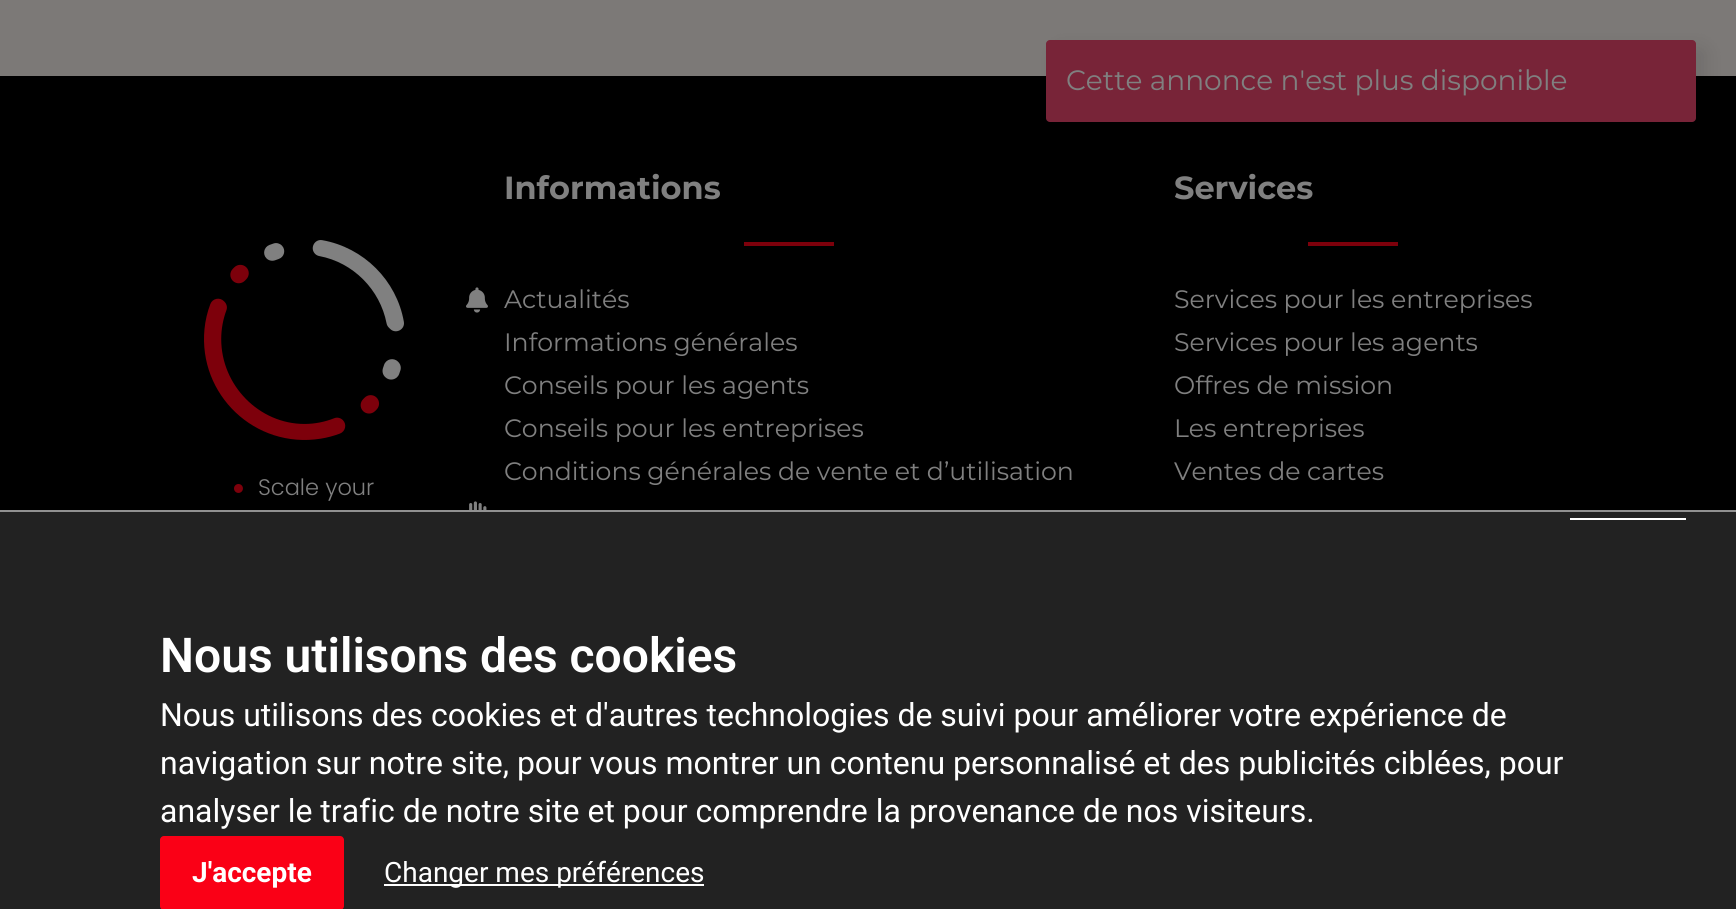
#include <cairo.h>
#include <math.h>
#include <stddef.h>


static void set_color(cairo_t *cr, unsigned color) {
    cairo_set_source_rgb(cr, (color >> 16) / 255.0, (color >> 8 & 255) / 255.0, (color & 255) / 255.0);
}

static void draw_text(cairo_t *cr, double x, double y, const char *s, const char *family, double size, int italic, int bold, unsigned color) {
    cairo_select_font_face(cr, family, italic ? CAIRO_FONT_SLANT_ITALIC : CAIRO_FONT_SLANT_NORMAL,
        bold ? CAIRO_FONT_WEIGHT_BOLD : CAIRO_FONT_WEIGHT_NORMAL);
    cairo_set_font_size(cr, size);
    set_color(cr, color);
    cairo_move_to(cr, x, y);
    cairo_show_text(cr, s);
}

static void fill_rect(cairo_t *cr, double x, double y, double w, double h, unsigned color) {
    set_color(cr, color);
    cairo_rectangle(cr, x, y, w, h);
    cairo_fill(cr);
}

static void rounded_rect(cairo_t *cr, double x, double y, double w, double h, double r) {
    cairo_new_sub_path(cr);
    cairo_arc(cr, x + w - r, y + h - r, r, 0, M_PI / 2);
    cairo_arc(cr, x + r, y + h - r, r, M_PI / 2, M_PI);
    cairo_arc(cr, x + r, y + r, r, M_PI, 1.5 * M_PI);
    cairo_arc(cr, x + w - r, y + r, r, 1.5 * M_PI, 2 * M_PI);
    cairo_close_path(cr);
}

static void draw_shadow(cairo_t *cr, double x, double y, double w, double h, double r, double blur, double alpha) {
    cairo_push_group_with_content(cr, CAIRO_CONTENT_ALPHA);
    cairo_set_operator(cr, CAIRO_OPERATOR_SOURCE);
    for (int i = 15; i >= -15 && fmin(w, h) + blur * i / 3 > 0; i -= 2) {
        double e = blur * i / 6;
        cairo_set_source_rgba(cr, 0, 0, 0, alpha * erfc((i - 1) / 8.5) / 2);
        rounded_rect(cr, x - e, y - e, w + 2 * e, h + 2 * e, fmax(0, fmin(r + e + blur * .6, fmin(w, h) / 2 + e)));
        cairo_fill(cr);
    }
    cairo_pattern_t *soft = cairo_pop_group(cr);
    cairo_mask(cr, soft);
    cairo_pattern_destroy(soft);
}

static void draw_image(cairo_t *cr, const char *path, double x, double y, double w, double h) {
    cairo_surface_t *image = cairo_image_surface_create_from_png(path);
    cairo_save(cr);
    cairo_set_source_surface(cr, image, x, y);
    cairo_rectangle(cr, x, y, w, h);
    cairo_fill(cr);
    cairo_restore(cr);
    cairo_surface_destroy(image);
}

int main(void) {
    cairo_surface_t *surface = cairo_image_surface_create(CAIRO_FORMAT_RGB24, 1736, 909);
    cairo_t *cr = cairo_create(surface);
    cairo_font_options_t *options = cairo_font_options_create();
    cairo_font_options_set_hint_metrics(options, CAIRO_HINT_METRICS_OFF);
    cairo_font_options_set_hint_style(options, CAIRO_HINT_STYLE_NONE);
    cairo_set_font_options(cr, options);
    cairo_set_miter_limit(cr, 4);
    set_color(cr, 0x7C7977);
    cairo_paint(cr);
    fill_rect(cr, 0, 76, 1736, 434, 0x000000);
    set_color(cr, 0x000000);
    draw_shadow(cr, 1056, 48, 650, 82, 4, 10, 0.1);
    set_color(cr, 0x782438);
    rounded_rect(cr, 1046, 40, 650, 82, 4);
    cairo_fill(cr);
    draw_text(cr, 1066, 90, "Cette annonce n'est plus disponible", "Montserrat", 28, 0, 0, 0x808080);
    draw_text(cr, 504, 199, "Informations", "Montserrat", 32, 0, 1, 0x808080);
    fill_rect(cr, 744, 242, 90, 4, 0x7D000B);
    draw_image(cr, "assets/img1.png", 466, 287, 22, 26);
    draw_text(cr, 504, 308, "Actualités", "Montserrat", 25.2, 0, 0, 0x808080);
    draw_text(cr, 504, 351, "Informations générales", "Montserrat", 25.2, 0, 0, 0x808080);
    draw_text(cr, 504, 394, "Conseils pour les agents", "Montserrat", 25.2, 0, 0, 0x808080);
    draw_text(cr, 504, 437, "Conseils pour les entreprises", "Montserrat", 25.2, 0, 0, 0x808080);
    draw_text(cr, 504, 480, "Conditions générales de vente et d’utilisation", "Montserrat", 25.2, 0, 0, 0x808080);
    draw_image(cr, "assets/img2.png", 469, 501, 18, 9);
    draw_text(cr, 1174, 199, "Services", "Montserrat", 32, 0, 1, 0x808080);
    fill_rect(cr, 1308, 242, 90, 4, 0x7D000B);
    draw_text(cr, 1174, 308, "Services pour les entreprises", "Montserrat", 25.2, 0, 0, 0x808080);
    draw_text(cr, 1174, 351, "Services pour les agents", "Montserrat", 25.2, 0, 0, 0x808080);
    draw_text(cr, 1174, 394, "Offres de mission", "Montserrat", 25.2, 0, 0, 0x808080);
    draw_text(cr, 1174, 437, "Les entreprises", "Montserrat", 25.2, 0, 0, 0x808080);
    draw_text(cr, 1174, 480, "Ventes de cartes", "Montserrat", 25.2, 0, 0, 0x808080);
    draw_image(cr, "assets/img3.png", 204, 240, 200, 200);
    draw_image(cr, "assets/img4.png", 234, 484, 9, 9);
    draw_text(cr, 258, 495, "Scale your", "Poppins Light", 22.5, 0, 0, 0x808080);
    fill_rect(cr, 0, 512, 1736, 397, 0x222222);
    fill_rect(cr, 0, 510, 1736, 2, 0x919191);
    draw_text(cr, 160, 672, "Nous utilisons des cookies", "Roboto SemiBold", 48, 0, 0, 0xFFFFFF);
    draw_text(cr, 160, 726, "Nous utilisons des cookies et d'autres technologies de suivi pour améliorer votre expérience de", "Roboto", 32, 0, 0, 0xFFFFFF);
    draw_text(cr, 160, 774, "navigation sur notre site, pour vous montrer un contenu personnalisé et des publicités ciblées, pour", "Roboto", 32, 0, 0, 0xFFFFFF);
    draw_text(cr, 160, 822, "analyser le trafic de notre site et pour comprendre la provenance de nos visiteurs.", "Roboto", 32, 0, 0, 0xFFFFFF);
    fill_rect(cr, 1570, 518, 116, 2, 0xFFFFFF);
    set_color(cr, 0xFA0016);
    rounded_rect(cr, 160, 836, 184, 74, 4);
    cairo_fill(cr);
    draw_text(cr, 192, 882, "J'accepte", "Roboto", 28, 0, 1, 0xFFFFFF);
    fill_rect(cr, 384, 884, 320, 2, 0xFFFFFF);
    draw_text(cr, 384, 882, "Changer mes préférences", "Roboto", 28, 0, 0, 0xFFFFFF);
    cairo_surface_write_to_png(surface, "output.png");
    cairo_font_options_destroy(options);
    cairo_destroy(cr);
    cairo_surface_destroy(surface);
    return 0;
}
